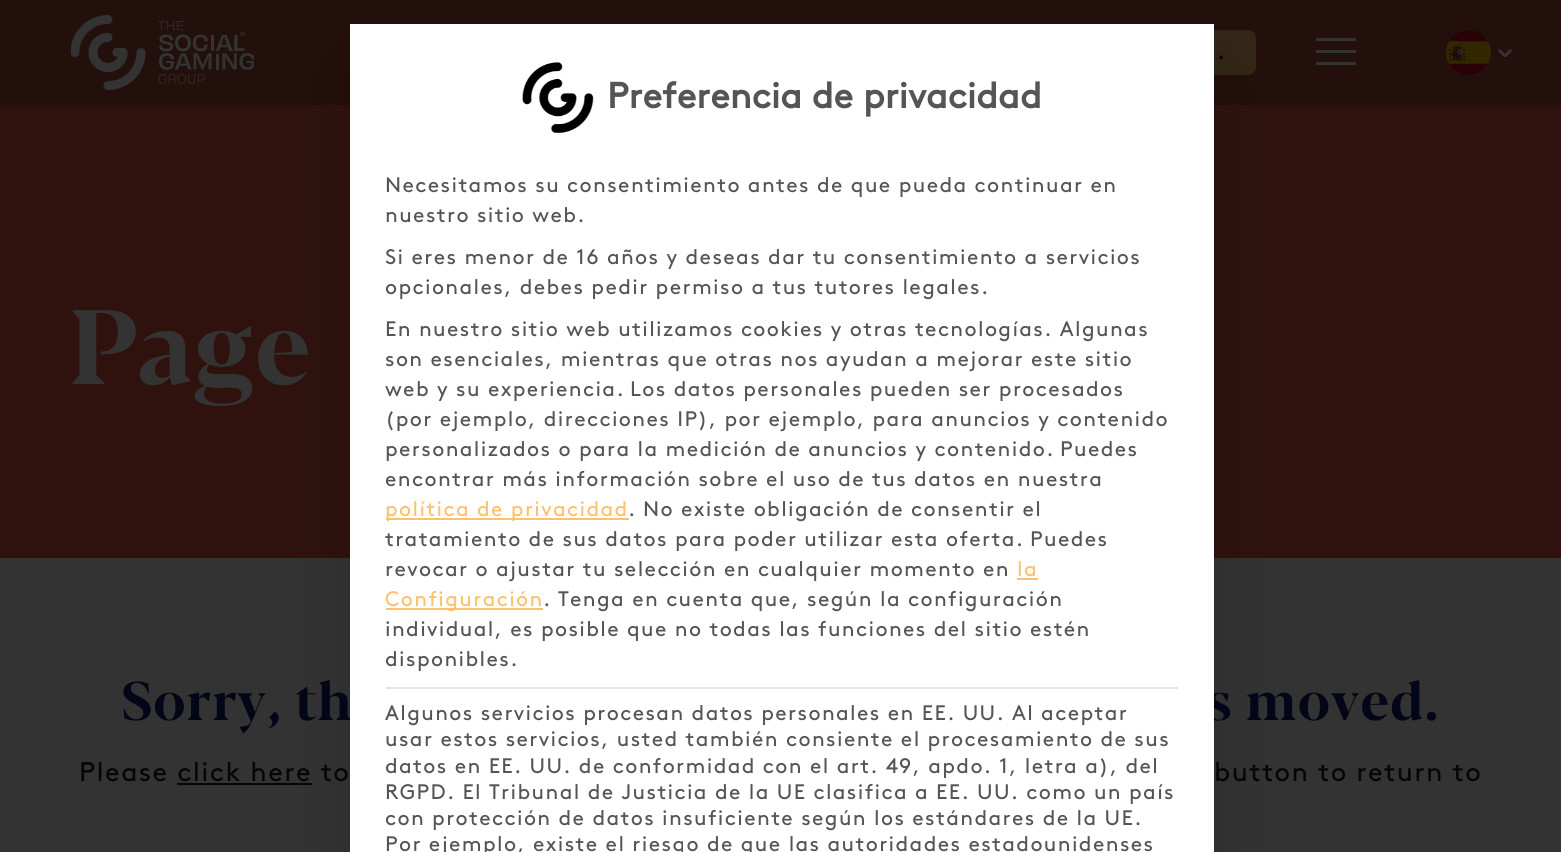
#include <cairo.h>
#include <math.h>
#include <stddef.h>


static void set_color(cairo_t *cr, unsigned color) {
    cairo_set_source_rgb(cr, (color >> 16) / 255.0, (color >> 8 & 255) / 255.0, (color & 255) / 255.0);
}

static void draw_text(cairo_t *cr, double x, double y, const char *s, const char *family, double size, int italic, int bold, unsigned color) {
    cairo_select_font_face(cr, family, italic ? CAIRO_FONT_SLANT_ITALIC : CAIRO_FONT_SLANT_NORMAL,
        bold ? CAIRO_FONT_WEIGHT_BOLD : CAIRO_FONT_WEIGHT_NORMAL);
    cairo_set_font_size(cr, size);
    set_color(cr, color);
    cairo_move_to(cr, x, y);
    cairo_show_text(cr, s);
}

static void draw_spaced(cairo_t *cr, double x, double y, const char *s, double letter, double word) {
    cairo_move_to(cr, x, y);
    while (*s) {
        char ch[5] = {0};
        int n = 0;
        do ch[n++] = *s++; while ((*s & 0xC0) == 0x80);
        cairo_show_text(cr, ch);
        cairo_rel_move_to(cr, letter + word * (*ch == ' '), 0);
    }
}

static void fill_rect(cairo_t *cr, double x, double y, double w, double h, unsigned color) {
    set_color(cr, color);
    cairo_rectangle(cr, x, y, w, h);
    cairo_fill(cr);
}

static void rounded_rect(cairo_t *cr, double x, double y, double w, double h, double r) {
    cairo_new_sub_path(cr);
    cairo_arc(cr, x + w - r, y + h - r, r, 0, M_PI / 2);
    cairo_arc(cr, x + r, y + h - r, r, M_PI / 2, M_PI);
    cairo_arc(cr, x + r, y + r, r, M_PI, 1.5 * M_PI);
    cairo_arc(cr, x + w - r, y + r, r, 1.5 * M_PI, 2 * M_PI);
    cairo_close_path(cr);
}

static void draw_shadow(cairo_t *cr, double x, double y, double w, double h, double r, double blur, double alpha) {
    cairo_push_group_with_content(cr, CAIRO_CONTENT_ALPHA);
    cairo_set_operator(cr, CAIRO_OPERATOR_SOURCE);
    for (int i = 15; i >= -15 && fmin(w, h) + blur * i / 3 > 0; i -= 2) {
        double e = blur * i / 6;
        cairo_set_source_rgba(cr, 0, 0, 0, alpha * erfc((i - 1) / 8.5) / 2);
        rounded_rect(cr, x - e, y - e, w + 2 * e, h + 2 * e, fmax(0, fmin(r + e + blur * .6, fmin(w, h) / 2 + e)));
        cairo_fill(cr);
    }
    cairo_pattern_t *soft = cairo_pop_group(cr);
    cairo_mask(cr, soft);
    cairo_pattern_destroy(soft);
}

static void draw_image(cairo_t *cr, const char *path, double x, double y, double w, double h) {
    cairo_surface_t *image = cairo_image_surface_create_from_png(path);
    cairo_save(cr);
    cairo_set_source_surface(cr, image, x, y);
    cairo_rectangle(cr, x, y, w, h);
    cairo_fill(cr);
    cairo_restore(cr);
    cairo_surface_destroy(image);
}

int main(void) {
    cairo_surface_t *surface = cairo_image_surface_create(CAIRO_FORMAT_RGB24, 1561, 852);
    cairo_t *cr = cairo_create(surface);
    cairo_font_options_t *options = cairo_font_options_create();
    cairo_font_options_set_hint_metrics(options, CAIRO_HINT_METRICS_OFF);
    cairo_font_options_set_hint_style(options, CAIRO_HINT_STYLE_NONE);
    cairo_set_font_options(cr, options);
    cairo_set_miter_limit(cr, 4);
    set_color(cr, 0x333333);
    cairo_paint(cr);
    fill_rect(cr, 0, 0, 1561, 105, 0x230F0B);
    draw_image(cr, "assets/img1.png", 71, 15, 183, 75);
    set_color(cr, 0x332616);
    rounded_rect(cr, 875, 30, 381, 45, 8);
    cairo_fill(cr);
    cairo_select_font_face(cr, "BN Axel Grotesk", CAIRO_FONT_SLANT_NORMAL, CAIRO_FONT_WEIGHT_BOLD);
    cairo_set_font_size(cr, 24);
    set_color(cr, 0x070607);
    draw_spaced(cr, 1219, 59, ".", 2, 0);
    fill_rect(cr, 1316, 38, 40, 3, 0x333333);
    fill_rect(cr, 1316, 50, 40, 3, 0x333333);
    fill_rect(cr, 1316, 62, 40, 3, 0x333333);
    set_color(cr, 0x2F120D);
    cairo_new_path(cr);
    cairo_arc(cr, 1468.5, 52.5, 22.5, 0, 2 * M_PI);
    cairo_fill(cr);
    draw_image(cr, "assets/img2.png", 1446, 30, 45, 45);
    cairo_save(cr);
    cairo_new_path(cr);
    cairo_move_to(cr, 1498.5, 57);
    cairo_line_to(cr, 1498.5, 49.5);
    cairo_line_to(cr, 1512, 49.5);
    cairo_line_to(cr, 1512, 57);
    cairo_close_path(cr);
    cairo_clip(cr);
    cairo_new_path(cr);
    cairo_move_to(cr, 1510.5, 50.5);
    cairo_line_to(cr, 1505, 56);
    cairo_line_to(cr, 1499.5, 50.5);
    set_color(cr, 0x333333);
    cairo_set_line_width(cr, 3);
    cairo_set_line_cap(cr, CAIRO_LINE_CAP_ROUND);
    cairo_set_line_join(cr, CAIRO_LINE_JOIN_ROUND);
    cairo_stroke(cr);
    cairo_restore(cr);
    fill_rect(cr, 0, 105, 1561, 453, 0x2F120D);
    fill_rect(cr, 177, 783, 135, 2, 0x070607);
    set_color(cr, 0x000000);
    draw_shadow(cr, 368, 80, 828, 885, 0, 37.5, 0.25);
    cairo_select_font_face(cr, "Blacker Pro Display", CAIRO_FONT_SLANT_NORMAL, CAIRO_FONT_WEIGHT_BOLD);
    cairo_set_font_size(cr, 54);
    set_color(cr, 0x020616);
    draw_spaced(cr, 122, 720, "Sorry, th", 1.35, 0);
    draw_spaced(cr, 1207, 720, "s moved.", 1.35, 0);
    fill_rect(cr, 350, 24, 864, 828, 0xFFFFFF);
    draw_image(cr, "assets/img3.png", 522, 62, 72, 71);
    draw_text(cr, 607, 108, "Preferencia de privacidad", "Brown", 36, 0, 1, 0x555555);
    cairo_select_font_face(cr, "Brown", CAIRO_FONT_SLANT_NORMAL, CAIRO_FONT_WEIGHT_NORMAL);
    cairo_set_font_size(cr, 21);
    draw_spaced(cr, 385, 192, "Necesitamos su consentimiento antes de que pueda continuar en", 1.35, 0);
    draw_spaced(cr, 385, 222, "nuestro sitio web.", 1.35, 0);
    draw_spaced(cr, 385, 264, "Si eres menor de 16 años y deseas dar tu consentimiento a servicios", 1.35, 0);
    draw_spaced(cr, 385, 294, "opcionales, debes pedir permiso a tus tutores legales.", 1.35, 0);
    draw_spaced(cr, 385, 336, "En nuestro sitio web utilizamos cookies y otras tecnologías. Algunas", 1.35, 0);
    draw_spaced(cr, 385, 366, "son esenciales, mientras que otras nos ayudan a mejorar este sitio", 1.35, 0);
    draw_spaced(cr, 385, 396, "web y su experiencia.", 1.35, 0);
    draw_spaced(cr, 630, 396, "Los datos personales pueden ser procesados", 1.35, 0);
    draw_spaced(cr, 385, 426, "(por ejemplo, direcciones IP), por ejemplo, para anuncios y contenido", 1.35, 0);
    draw_spaced(cr, 385, 456, "personalizados o para la medición de anuncios y contenido.", 1.35, 0);
    draw_spaced(cr, 1060, 456, "Puedes", 1.35, 0);
    draw_spaced(cr, 385, 486, "encontrar más información sobre el uso de tus datos en nuestra", 1.35, 0);
    fill_rect(cr, 386, 518, 243, 2, 0xFFC06E);
    draw_spaced(cr, 385, 516, "política de privacidad", 1.35, 0);
    set_color(cr, 0x555555);
    draw_spaced(cr, 628, 516, ".", 1.35, 0);
    draw_spaced(cr, 643, 516, "No existe obligación de consentir el", 1.35, 0);
    draw_spaced(cr, 385, 546, "tratamiento de sus datos para poder utilizar esta oferta.", 1.35, 0);
    draw_spaced(cr, 1030, 546, "Puedes", 1.35, 0);
    draw_spaced(cr, 385, 576, "revocar o ajustar tu selección en cualquier momento en", 1.35, 0);
    set_color(cr, 0xFFC06E);
    draw_spaced(cr, 1017, 576, "la", 1.35, 0);
    fill_rect(cr, 1017, 578, 21, 2, 0xFFC06E);
    fill_rect(cr, 386, 608, 157, 2, 0xFFC06E);
    draw_spaced(cr, 385, 606, "Configuración", 1.35, 0);
    set_color(cr, 0x555555);
    draw_spaced(cr, 543, 606, ".", 1.35, 0);
    draw_spaced(cr, 558, 606, "Tenga en cuenta que, según la configuración", 1.35, 0);
    draw_spaced(cr, 385, 636, "individual, es posible que no todas las funciones del sitio estén", 1.35, 0);
    draw_spaced(cr, 385, 666, "disponibles.", 1.35, 0);
    fill_rect(cr, 386, 687, 792, 2, 0xE5E5E5);
    set_color(cr, 0x555555);
    draw_spaced(cr, 385, 720, "Algunos servicios procesan datos personales en EE. UU. Al aceptar", 1.35, 0);
    draw_spaced(cr, 385, 746, "usar estos servicios, usted también consiente el procesamiento de sus", 1.35, 0);
    draw_spaced(cr, 385, 773, "datos en EE. UU. de conformidad con el art. 49, apdo. 1, letra a), del", 1.35, 0);
    draw_spaced(cr, 385, 799, "RGPD. El Tribunal de Justicia de la UE clasifica a EE. UU. como un país", 1.35, 0);
    draw_spaced(cr, 385, 825, "con protección de datos insuficiente según los estándares de la UE.", 1.35, 0);
    draw_spaced(cr, 385, 851, "Por ejemplo, existe el riesgo de que las autoridades estadounidenses", 1.35, 0);
    draw_text(cr, 70, 384, "Page", "Blacker Pro Display", 105, 0, 1, 0x333333);
    cairo_select_font_face(cr, "Brown", CAIRO_FONT_SLANT_NORMAL, CAIRO_FONT_WEIGHT_NORMAL);
    cairo_set_font_size(cr, 27);
    set_color(cr, 0x070607);
    draw_spaced(cr, 79, 781, "Please click here to", 1.35, 0);
    draw_spaced(cr, 1214, 781, "button to return to", 1.35, 0);
    cairo_surface_write_to_png(surface, "output.png");
    cairo_font_options_destroy(options);
    cairo_destroy(cr);
    cairo_surface_destroy(surface);
    return 0;
}
